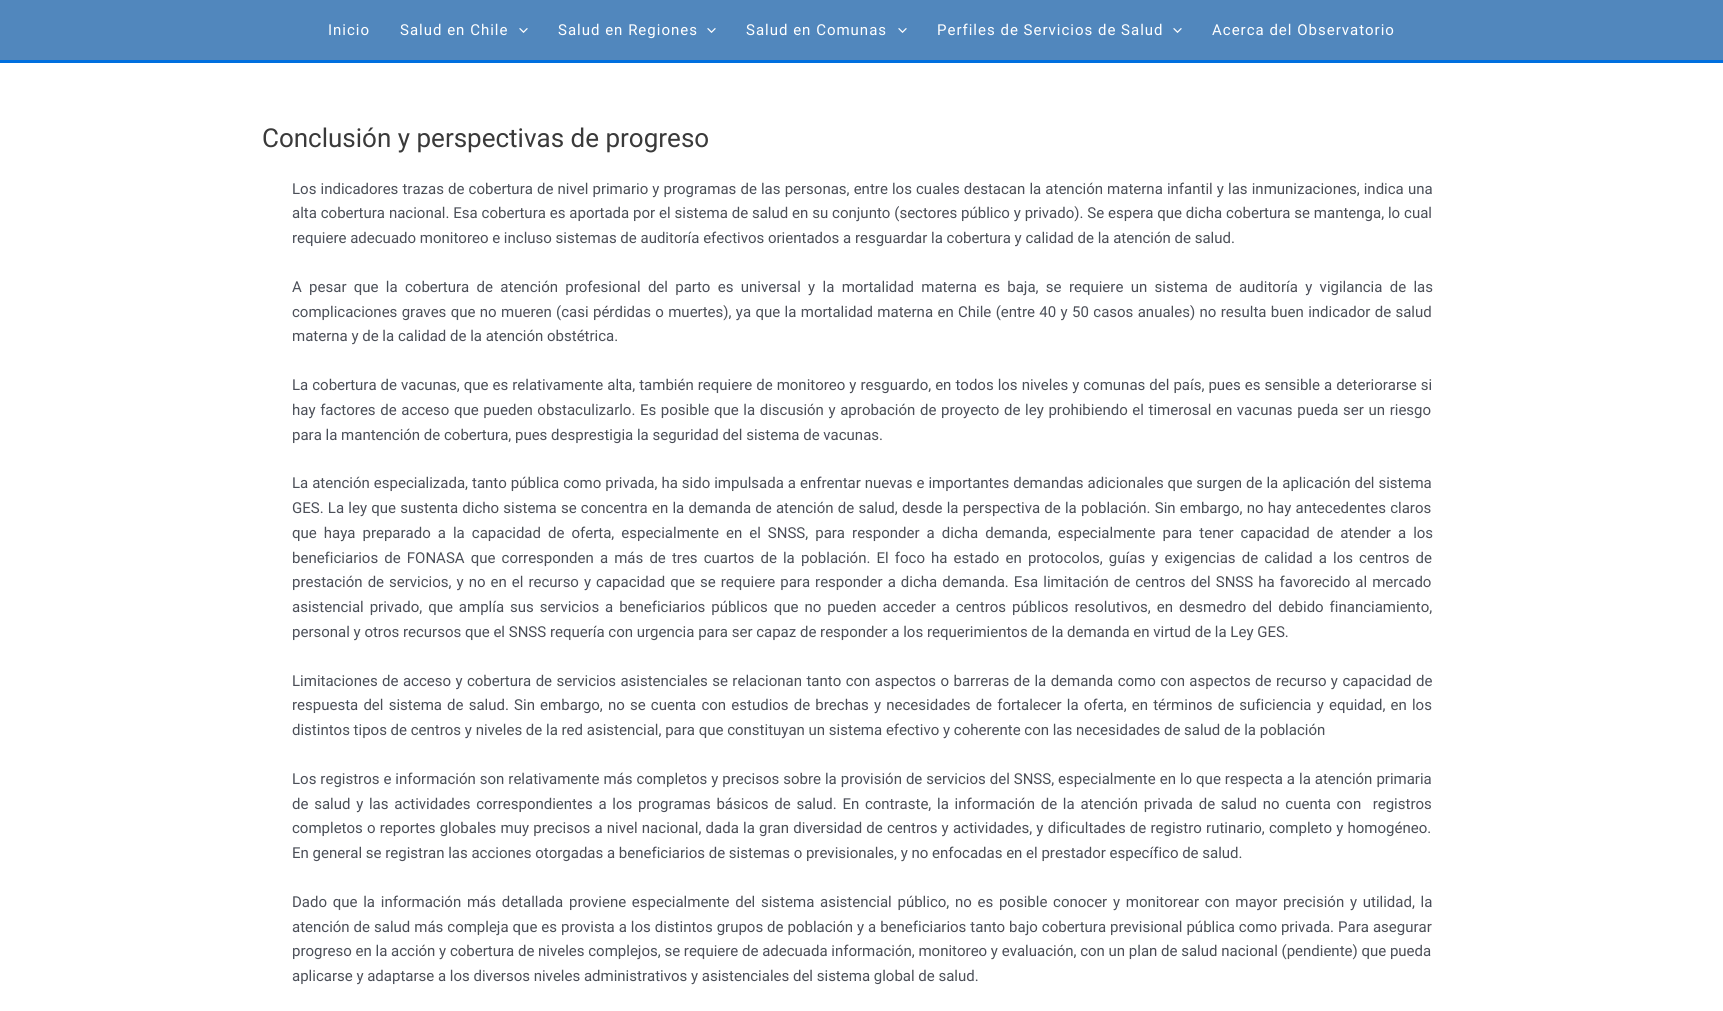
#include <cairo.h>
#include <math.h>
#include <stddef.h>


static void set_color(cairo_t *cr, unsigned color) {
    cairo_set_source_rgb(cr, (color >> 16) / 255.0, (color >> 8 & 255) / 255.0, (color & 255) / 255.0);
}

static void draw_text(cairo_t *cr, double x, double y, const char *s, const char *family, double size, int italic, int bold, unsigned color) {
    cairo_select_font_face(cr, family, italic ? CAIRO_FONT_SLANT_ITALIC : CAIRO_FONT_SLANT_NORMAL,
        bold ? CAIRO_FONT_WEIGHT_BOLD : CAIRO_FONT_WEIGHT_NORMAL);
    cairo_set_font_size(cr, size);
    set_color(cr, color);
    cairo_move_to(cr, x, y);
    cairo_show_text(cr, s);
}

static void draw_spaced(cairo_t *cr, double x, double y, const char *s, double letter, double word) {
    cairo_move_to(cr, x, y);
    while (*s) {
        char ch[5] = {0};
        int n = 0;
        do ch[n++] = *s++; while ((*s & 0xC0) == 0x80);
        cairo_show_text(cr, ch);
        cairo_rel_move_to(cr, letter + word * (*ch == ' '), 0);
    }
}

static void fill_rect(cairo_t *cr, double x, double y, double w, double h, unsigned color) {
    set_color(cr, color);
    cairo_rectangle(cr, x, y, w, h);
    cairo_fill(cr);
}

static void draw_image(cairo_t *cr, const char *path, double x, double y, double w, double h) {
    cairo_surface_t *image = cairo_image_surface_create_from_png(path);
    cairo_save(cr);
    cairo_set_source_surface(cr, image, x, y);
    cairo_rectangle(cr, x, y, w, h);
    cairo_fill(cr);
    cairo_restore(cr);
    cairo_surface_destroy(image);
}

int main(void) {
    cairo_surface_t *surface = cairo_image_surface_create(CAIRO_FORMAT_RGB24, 1723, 1011);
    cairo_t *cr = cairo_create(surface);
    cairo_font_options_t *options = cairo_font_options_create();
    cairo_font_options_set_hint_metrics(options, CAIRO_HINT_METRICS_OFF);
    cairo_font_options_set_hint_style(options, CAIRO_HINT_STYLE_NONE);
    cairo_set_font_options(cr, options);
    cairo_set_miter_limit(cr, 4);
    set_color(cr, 0xFFFFFF);
    cairo_paint(cr);
    fill_rect(cr, 0, 0, 1723, 60, 0x5187BD);
    fill_rect(cr, 0, 60, 1723, 3, 0x006FDF);
    cairo_select_font_face(cr, "Roboto", CAIRO_FONT_SLANT_NORMAL, CAIRO_FONT_WEIGHT_NORMAL);
    cairo_set_font_size(cr, 15);
    set_color(cr, 0xFFFFFF);
    draw_spaced(cr, 328, 35, "Inicio", 1, 0);
    draw_spaced(cr, 400, 35, "Salud en Chile", 1, 0);
    draw_image(cr, "assets/img1.png", 519, 28, 9, 5);
    draw_spaced(cr, 558, 35, "Salud en Regiones", 1, 0);
    draw_image(cr, "assets/img1.png", 707, 28, 9, 5);
    draw_spaced(cr, 746, 35, "Salud en Comunas", 1, 0);
    draw_image(cr, "assets/img1.png", 898, 28, 9, 5);
    draw_spaced(cr, 937, 35, "Perfiles de Servicios de Salud", 1, 0);
    draw_image(cr, "assets/img1.png", 1173, 28, 9, 5);
    draw_spaced(cr, 1212, 35, "Acerca del Observatorio", 1, 0);
    draw_text(cr, 262, 147, "Conclusión y perspectivas de progreso", "Roboto", 26, 0, 0, 0x3A3A3A);
    cairo_set_font_size(cr, 15);
    set_color(cr, 0x4B4F58);
    draw_spaced(cr, 292, 194, "Los indicadores trazas de cobertura de nivel primario y programas de las personas, entre los cuales destacan la atención materna infantil y las inmunizaciones, indica una", 0, 0.4);
    draw_spaced(cr, 292, 218, "alta cobertura nacional. Esa cobertura es aportada por el sistema de salud en su conjunto (sectores público y privado). Se espera que dicha cobertura se mantenga, lo cual", 0, 0.15);
    draw_text(cr, 292, 243, "requiere adecuado monitoreo e incluso sistemas de auditoría efectivos orientados a resguardar la cobertura y calidad de la atención de salud.", "Roboto", 15, 0, 0, 0x4B4F58);
    draw_spaced(cr, 292, 292, "A pesar que la cobertura de atención profesional del parto es universal y la mortalidad materna es baja, se requiere un sistema de auditoría y vigilancia de las", 0, 3.6);
    draw_spaced(cr, 292, 317, "complicaciones graves que no mueren (casi pérdidas o muertes), ya que la mortalidad materna en Chile (entre 40 y 50 casos anuales) no resulta buen indicador de salud", 0, 0.65);
    draw_text(cr, 292, 341, "materna y de la calidad de la atención obstétrica.", "Roboto", 15, 0, 0, 0x4B4F58);
    draw_spaced(cr, 292, 390, "La cobertura de vacunas, que es relativamente alta, también requiere de monitoreo y resguardo, en todos los niveles y comunas del país, pues es sensible a deteriorarse si", 0, 0.3);
    draw_spaced(cr, 292, 415, "hay factores de acceso que pueden obstaculizarlo. Es posible que la discusión y aprobación de proyecto de ley prohibiendo el timerosal en vacunas pueda ser un riesgo", 0, 0.9);
    draw_text(cr, 292, 440, "para la mantención de cobertura, pues desprestigia la seguridad del sistema de vacunas.", "Roboto", 15, 0, 0, 0x4B4F58);
    draw_spaced(cr, 292, 488, "La atención especializada, tanto pública como privada, ha sido impulsada a enfrentar nuevas e importantes demandas adicionales que surgen de la aplicación del sistema", 0, 0.25);
    draw_spaced(cr, 292, 513, "GES. La ley que sustenta dicho sistema se concentra en la demanda de atención de salud, desde la perspectiva de la población. Sin embargo, no hay antecedentes claros", 0, 0.5);
    draw_spaced(cr, 292, 538, "que haya preparado a la capacidad de oferta, especialmente en el SNSS, para responder a dicha demanda, especialmente para tener capacidad de atender a los", 0, 3.3);
    draw_spaced(cr, 292, 563, "beneficiarios de FONASA que corresponden a más de tres cuartos de la población. El foco ha estado en protocolos, guías y exigencias de calidad a los centros de", 0, 2.4);
    draw_spaced(cr, 292, 587, "prestación de servicios, y no en el recurso y capacidad que se requiere para responder a dicha demanda. Esa limitación de centros del SNSS ha favorecido al mercado", 0, 1.3);
    draw_spaced(cr, 292, 612, "asistencial privado, que amplía sus servicios a beneficiarios públicos que no pueden acceder a centros públicos resolutivos, en desmedro del debido financiamiento,", 0, 2.2);
    draw_text(cr, 292, 637, "personal y otros recursos que el SNSS requería con urgencia para ser capaz de responder a los requerimientos de la demanda en virtud de la Ley GES.", "Roboto", 15, 0, 0, 0x4B4F58);
    draw_spaced(cr, 292, 686, "Limitaciones de acceso y cobertura de servicios asistenciales se relacionan tanto con aspectos o barreras de la demanda como con aspectos de recurso y capacidad de", 0, 0.7);
    draw_spaced(cr, 292, 710, "respuesta del sistema de salud. Sin embargo, no se cuenta con estudios de brechas y necesidades de fortalecer la oferta, en términos de suficiencia y equidad, en los", 0, 1.45);
    draw_text(cr, 292, 735, "distintos tipos de centros y niveles de la red asistencial, para que constituyan un sistema efectivo y coherente con las necesidades de salud de la población", "Roboto", 15, 0, 0, 0x4B4F58);
    draw_spaced(cr, 292, 784, "Los registros e información son relativamente más completos y precisos sobre la provisión de servicios del SNSS, especialmente en lo que respecta a la atención primaria", 0, 0.25);
    draw_spaced(cr, 292, 809, "de salud y las actividades correspondientes a los programas básicos de salud. En contraste, la información de la atención privada de salud no cuenta con  registros", 0, 2);
    draw_spaced(cr, 292, 833, "completos o reportes globales muy precisos a nivel nacional, dada la gran diversidad de centros y actividades, y dificultades de registro rutinario, completo y homogéneo.", 0, 0.5);
    draw_text(cr, 292, 858, "En general se registran las acciones otorgadas a beneficiarios de sistemas o previsionales, y no enfocadas en el prestador específico de salud.", "Roboto", 15, 0, 0, 0x4B4F58);
    draw_spaced(cr, 292, 907, "Dado que la información más detallada proviene especialmente del sistema asistencial público, no es posible conocer y monitorear con mayor precisión y utilidad, la", 0, 2);
    draw_spaced(cr, 292, 932, "atención de salud más compleja que es provista a los distintos grupos de población y a beneficiarios tanto bajo cobertura previsional pública como privada. Para asegurar", 0, 0.25);
    draw_text(cr, 292, 956, "progreso en la acción y cobertura de niveles complejos, se requiere de adecuada información, monitoreo y evaluación, con un plan de salud nacional (pendiente) que pueda", "Roboto", 15, 0, 0, 0x4B4F58);
    draw_text(cr, 292, 981, "aplicarse y adaptarse a los diversos niveles administrativos y asistenciales del sistema global de salud.", "Roboto", 15, 0, 0, 0x4B4F58);
    cairo_surface_write_to_png(surface, "output.png");
    cairo_font_options_destroy(options);
    cairo_destroy(cr);
    cairo_surface_destroy(surface);
    return 0;
}
